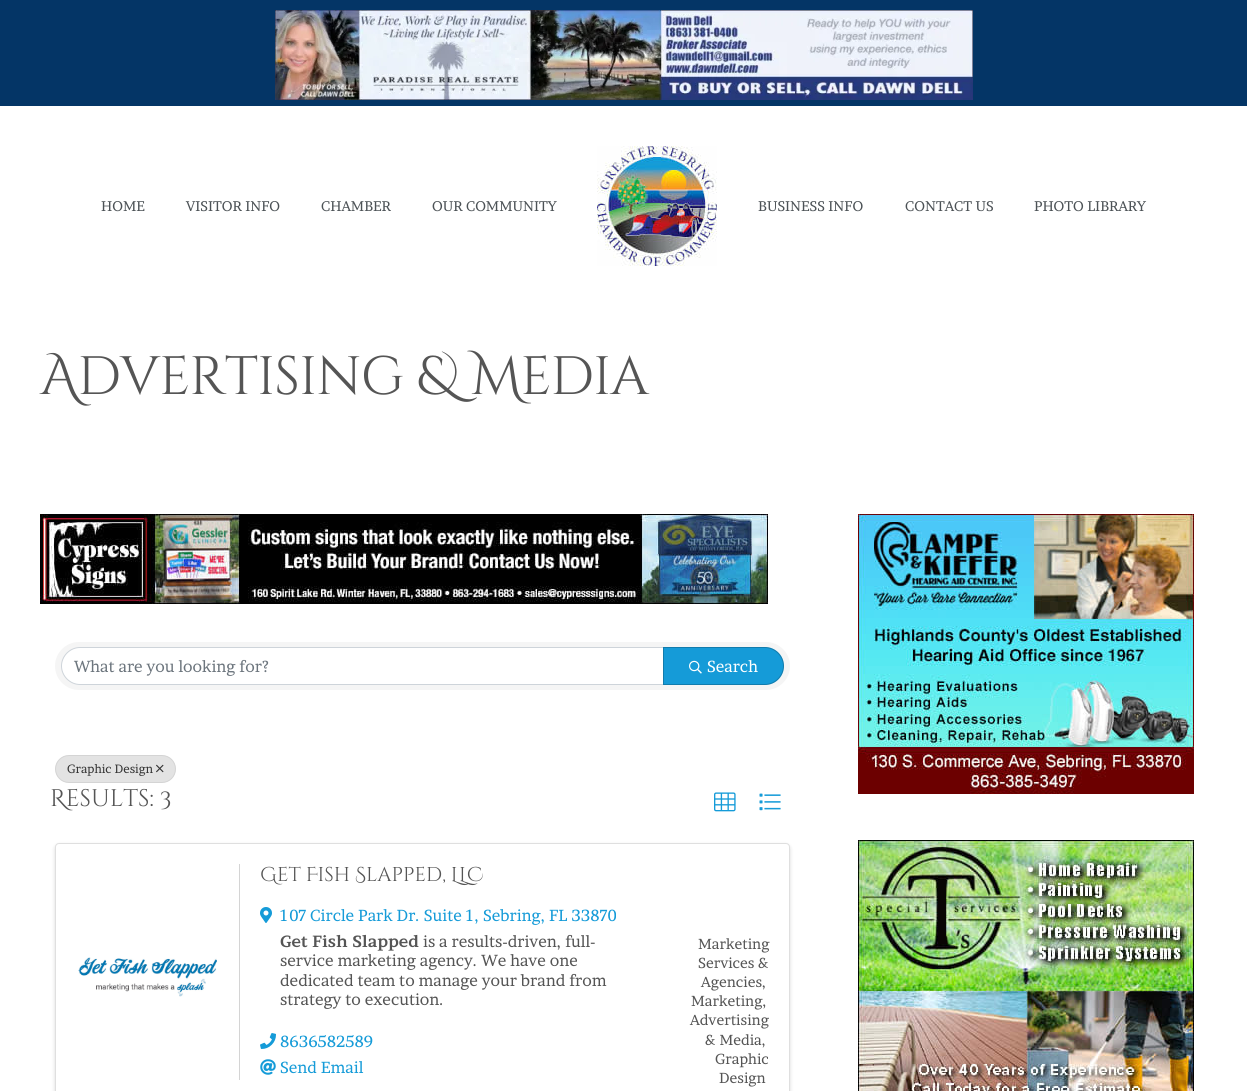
#include <cairo.h>
#include <math.h>
#include <stddef.h>


static void set_color(cairo_t *cr, unsigned color) {
    cairo_set_source_rgb(cr, (color >> 16) / 255.0, (color >> 8 & 255) / 255.0, (color & 255) / 255.0);
}

static void draw_text(cairo_t *cr, double x, double y, const char *s, const char *family, double size, int italic, int bold, unsigned color) {
    cairo_select_font_face(cr, family, italic ? CAIRO_FONT_SLANT_ITALIC : CAIRO_FONT_SLANT_NORMAL,
        bold ? CAIRO_FONT_WEIGHT_BOLD : CAIRO_FONT_WEIGHT_NORMAL);
    cairo_set_font_size(cr, size);
    set_color(cr, color);
    cairo_move_to(cr, x, y);
    cairo_show_text(cr, s);
}

static void draw_spaced(cairo_t *cr, double x, double y, const char *s, double letter, double word) {
    cairo_move_to(cr, x, y);
    while (*s) {
        char ch[5] = {0};
        int n = 0;
        do ch[n++] = *s++; while ((*s & 0xC0) == 0x80);
        cairo_show_text(cr, ch);
        cairo_rel_move_to(cr, letter + word * (*ch == ' '), 0);
    }
}

static void fill_rect(cairo_t *cr, double x, double y, double w, double h, unsigned color) {
    set_color(cr, color);
    cairo_rectangle(cr, x, y, w, h);
    cairo_fill(cr);
}

static void rounded_rect(cairo_t *cr, double x, double y, double w, double h, double r) {
    cairo_new_sub_path(cr);
    cairo_arc(cr, x + w - r, y + h - r, r, 0, M_PI / 2);
    cairo_arc(cr, x + r, y + h - r, r, M_PI / 2, M_PI);
    cairo_arc(cr, x + r, y + r, r, M_PI, 1.5 * M_PI);
    cairo_arc(cr, x + w - r, y + r, r, 1.5 * M_PI, 2 * M_PI);
    cairo_close_path(cr);
}

static void draw_shadow(cairo_t *cr, double x, double y, double w, double h, double r, double blur, double alpha) {
    cairo_push_group_with_content(cr, CAIRO_CONTENT_ALPHA);
    cairo_set_operator(cr, CAIRO_OPERATOR_SOURCE);
    for (int i = 15; i >= -15 && fmin(w, h) + blur * i / 3 > 0; i -= 2) {
        double e = blur * i / 6;
        cairo_set_source_rgba(cr, 0, 0, 0, alpha * erfc((i - 1) / 8.5) / 2);
        rounded_rect(cr, x - e, y - e, w + 2 * e, h + 2 * e, fmax(0, fmin(r + e + blur * .6, fmin(w, h) / 2 + e)));
        cairo_fill(cr);
    }
    cairo_pattern_t *soft = cairo_pop_group(cr);
    cairo_mask(cr, soft);
    cairo_pattern_destroy(soft);
}

static void draw_image(cairo_t *cr, const char *path, double x, double y, double w, double h) {
    cairo_surface_t *image = cairo_image_surface_create_from_png(path);
    cairo_save(cr);
    cairo_set_source_surface(cr, image, x, y);
    cairo_rectangle(cr, x, y, w, h);
    cairo_fill(cr);
    cairo_restore(cr);
    cairo_surface_destroy(image);
}

int main(void) {
    cairo_surface_t *surface = cairo_image_surface_create(CAIRO_FORMAT_RGB24, 1247, 1091);
    cairo_t *cr = cairo_create(surface);
    cairo_font_options_t *options = cairo_font_options_create();
    cairo_font_options_set_hint_metrics(options, CAIRO_HINT_METRICS_OFF);
    cairo_font_options_set_hint_style(options, CAIRO_HINT_STYLE_NONE);
    cairo_set_font_options(cr, options);
    cairo_set_miter_limit(cr, 4);
    set_color(cr, 0xFFFFFF);
    cairo_paint(cr);
    fill_rect(cr, 0, 0, 1247, 106, 0x043566);
    draw_image(cr, "assets/img1.png", 275, 10, 698, 90);
    draw_text(cr, 101, 211, "HOME", "Brawler", 14, 0, 0, 0x4C5256);
    draw_text(cr, 186, 211, "VISITOR INFO", "Brawler", 14, 0, 0, 0x4C5256);
    draw_text(cr, 321, 211, "CHAMBER", "Brawler", 14, 0, 0, 0x4C5256);
    draw_text(cr, 432, 211, "OUR COMMUNITY", "Brawler", 14, 0, 0, 0x4C5256);
    draw_image(cr, "assets/img2.png", 597, 146, 120, 120);
    draw_text(cr, 758, 211, "BUSINESS INFO", "Brawler", 14, 0, 0, 0x4C5256);
    draw_text(cr, 905, 211, "CONTACT US", "Brawler", 14, 0, 0, 0x4C5256);
    draw_text(cr, 1034, 211, "PHOTO LIBRARY", "Brawler", 14, 0, 0, 0x4C5256);
    cairo_select_font_face(cr, "Cinzel Decorative", CAIRO_FONT_SLANT_NORMAL, CAIRO_FONT_WEIGHT_NORMAL);
    cairo_set_font_size(cr, 54);
    set_color(cr, 0x555555);
    draw_spaced(cr, 40, 394, "Advertising & Media", -1, 0);
    draw_image(cr, "assets/img3.png", 40, 514, 728, 90);
    set_color(cr, 0xF5F5F5);
    rounded_rect(cr, 55, 642, 735, 48, 24);
    cairo_fill(cr);
    set_color(cr, 0xFFFFFF);
    cairo_new_path(cr);
    cairo_move_to(cr, 80, 647.5);
    cairo_line_to(cr, 663.5, 647.5);
    cairo_line_to(cr, 663.5, 684.5);
    cairo_line_to(cr, 80, 684.5);
    cairo_curve_to(cr, 70, 684.5, 61.5, 676, 61.5, 666);
    cairo_curve_to(cr, 61.5, 656, 70, 647.5, 80, 647.5);
    cairo_close_path(cr);
    cairo_fill_preserve(cr);
    set_color(cr, 0xCED4DA);
    cairo_set_line_width(cr, 1);
    cairo_stroke(cr);
    draw_text(cr, 74, 672, "What are you looking for?", "Brawler", 16, 0, 0, 0x6C757D);
    set_color(cr, 0x159BD8);
    cairo_new_path(cr);
    cairo_move_to(cr, 663, 647);
    cairo_line_to(cr, 765, 647);
    cairo_curve_to(cr, 775.5, 647, 784, 655.5, 784, 666);
    cairo_curve_to(cr, 784, 676.5, 775.5, 685, 765, 685);
    cairo_line_to(cr, 663, 685);
    cairo_close_path(cr);
    cairo_fill(cr);
    cairo_new_path(cr);
    cairo_move_to(cr, 663.5, 647.5);
    cairo_line_to(cr, 765, 647.5);
    cairo_curve_to(cr, 775, 647.5, 783.5, 656, 783.5, 666);
    cairo_curve_to(cr, 783.5, 676, 775, 684.5, 765, 684.5);
    cairo_line_to(cr, 663.5, 684.5);
    cairo_close_path(cr);
    cairo_set_source_rgba(cr, 0, 0, 0, 0.2);
    cairo_stroke(cr);
    draw_image(cr, "assets/img4.png", 689, 660, 13, 14);
    draw_text(cr, 707, 672, "Search", "Brawler", 16, 0, 0, 0xFFFFFF);
    set_color(cr, 0xE3E3E3);
    rounded_rect(cr, 55, 755, 121, 28, 14);
    cairo_fill(cr);
    rounded_rect(cr, 55.5, 755.5, 120, 27, 13.5);
    cairo_set_source_rgba(cr, 0, 0, 0, 0.07);
    cairo_stroke(cr);
    draw_text(cr, 67, 773, "Graphic Design", "Brawler", 12, 0, 0, 0x333333);
    draw_image(cr, "assets/img5.png", 156, 764, 8, 9);
    draw_text(cr, 50, 806, "Results: 3", "Cinzel Decorative", 24, 0, 0, 0x555555);
    draw_image(cr, "assets/img6.png", 714, 792, 22, 20);
    draw_image(cr, "assets/img7.png", 759, 793, 22, 18);
    set_color(cr, 0x000000);
    draw_shadow(cr, 55, 845, 735, 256, 4, 2, 0.15);
    set_color(cr, 0xFFFFFF);
    rounded_rect(cr, 55.5, 843.5, 734, 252, 3.5);
    cairo_fill_preserve(cr);
    set_color(cr, 0xDFDFDF);
    cairo_stroke(cr);
    draw_image(cr, "assets/img8.png", 78, 957, 139, 40);
    fill_rect(cr, 239, 864, 1, 216, 0xD4D4D4);
    draw_text(cr, 260, 881, "Get Fish Slapped, LLC", "Cinzel Decorative", 20, 0, 0, 0x555555);
    draw_image(cr, "assets/img9.png", 260, 907, 12, 16);
    draw_text(cr, 280, 921, "107 Circle Park Dr. Suite 1, Sebring, FL 33870", "Brawler", 16, 0, 0, 0x159BD8);
    draw_text(cr, 280, 947, "Get Fish Slapped", "Brawler", 16, 0, 1, 0x555555);
    draw_text(cr, 423, 947, "is a results-driven, full-", "Brawler", 16, 0, 0, 0x555555);
    draw_text(cr, 280, 966, "service marketing agency. We have one", "Brawler", 16, 0, 0, 0x555555);
    draw_text(cr, 280, 986, "dedicated team to manage your brand from", "Brawler", 16, 0, 0, 0x555555);
    draw_text(cr, 280, 1005, "strategy to execution.", "Brawler", 16, 0, 0, 0x555555);
    draw_image(cr, "assets/img10.png", 260, 1033, 16, 16);
    draw_text(cr, 280, 1047, "8636582589", "Brawler", 16, 0, 0, 0x159BD8);
    draw_image(cr, "assets/img11.png", 260, 1059, 16, 16);
    draw_text(cr, 280, 1073, "Send Email", "Brawler", 16, 0, 0, 0x159BD8);
    draw_text(cr, 698, 949, "Marketing", "Brawler", 14.5, 0, 0, 0x555555);
    draw_text(cr, 698, 968, "Services &", "Brawler", 14.5, 0, 0, 0x555555);
    draw_text(cr, 701, 987, "Agencies,", "Brawler", 14.5, 0, 0, 0x555555);
    draw_text(cr, 691, 1006, "Marketing,", "Brawler", 14.5, 0, 0, 0x555555);
    draw_text(cr, 690, 1025, "Advertising", "Brawler", 14.5, 0, 0, 0x555555);
    draw_text(cr, 705, 1045, "& Media,", "Brawler", 14.5, 0, 0, 0x555555);
    draw_text(cr, 715, 1064, "Graphic", "Brawler", 14.5, 0, 0, 0x555555);
    draw_text(cr, 719, 1083, "Design", "Brawler", 14.5, 0, 0, 0x555555);
    draw_image(cr, "assets/img12.png", 858, 514, 336, 280);
    draw_image(cr, "assets/img13.png", 858, 840, 336, 251);
    cairo_surface_write_to_png(surface, "output.png");
    cairo_font_options_destroy(options);
    cairo_destroy(cr);
    cairo_surface_destroy(surface);
    return 0;
}
